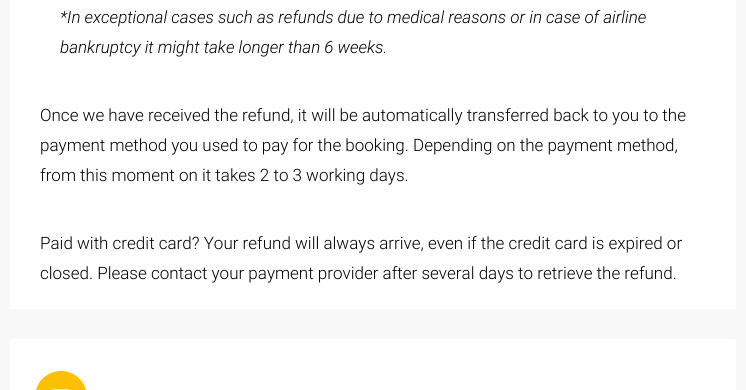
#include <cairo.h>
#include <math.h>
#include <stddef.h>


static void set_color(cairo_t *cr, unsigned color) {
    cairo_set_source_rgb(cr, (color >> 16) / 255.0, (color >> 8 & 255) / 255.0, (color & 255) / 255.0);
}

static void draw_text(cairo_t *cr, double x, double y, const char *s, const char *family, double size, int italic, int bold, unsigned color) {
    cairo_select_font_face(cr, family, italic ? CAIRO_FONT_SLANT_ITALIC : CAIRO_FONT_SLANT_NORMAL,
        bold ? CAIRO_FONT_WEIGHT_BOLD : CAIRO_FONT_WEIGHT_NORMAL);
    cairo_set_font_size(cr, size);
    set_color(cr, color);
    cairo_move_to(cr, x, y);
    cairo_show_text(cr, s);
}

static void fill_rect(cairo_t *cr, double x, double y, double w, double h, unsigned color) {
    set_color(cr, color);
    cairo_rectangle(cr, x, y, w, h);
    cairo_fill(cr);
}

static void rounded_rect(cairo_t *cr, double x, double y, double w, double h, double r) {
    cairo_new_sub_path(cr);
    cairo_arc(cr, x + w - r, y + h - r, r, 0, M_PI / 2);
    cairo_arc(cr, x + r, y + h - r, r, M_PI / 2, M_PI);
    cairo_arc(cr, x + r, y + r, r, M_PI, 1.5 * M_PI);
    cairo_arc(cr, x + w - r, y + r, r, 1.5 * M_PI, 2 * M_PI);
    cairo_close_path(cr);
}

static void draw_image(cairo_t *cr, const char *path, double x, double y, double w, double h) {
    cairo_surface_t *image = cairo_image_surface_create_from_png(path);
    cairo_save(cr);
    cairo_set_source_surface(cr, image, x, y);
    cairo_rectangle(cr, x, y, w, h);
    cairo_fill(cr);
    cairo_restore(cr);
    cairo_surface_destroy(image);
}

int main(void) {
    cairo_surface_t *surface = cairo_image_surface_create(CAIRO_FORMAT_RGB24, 746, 390);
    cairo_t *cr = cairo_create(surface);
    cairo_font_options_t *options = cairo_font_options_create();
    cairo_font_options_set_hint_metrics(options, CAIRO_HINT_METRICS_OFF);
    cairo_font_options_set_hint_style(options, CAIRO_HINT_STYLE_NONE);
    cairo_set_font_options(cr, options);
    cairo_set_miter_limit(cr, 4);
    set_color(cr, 0xF8F8F8);
    cairo_paint(cr);
    fill_rect(cr, 10, 0, 726, 309, 0xFFFFFF);
    draw_text(cr, 60, 23, "*In exceptional cases such as refunds due to medical reasons or in case of airline", "Roboto Light", 17, 1, 0, 0x000000);
    draw_text(cr, 60, 53, "bankruptcy it might take longer than 6 weeks.", "Roboto Light", 17, 1, 0, 0x000000);
    draw_text(cr, 40, 121, "Once we have received the refund, it will be automatically transferred back to you to the", "Roboto Light", 17, 0, 0, 0x000000);
    draw_text(cr, 40, 151, "payment method you used to pay for the booking. Depending on the payment method,", "Roboto Light", 17, 0, 0, 0x000000);
    draw_text(cr, 40, 181, "from this moment on it takes 2 to 3 working days.", "Roboto Light", 17, 0, 0, 0x000000);
    draw_text(cr, 40, 249, "Paid with credit card? Your refund will always arrive, even if the credit card is expired or", "Roboto Light", 17, 0, 0, 0x000000);
    draw_text(cr, 40, 279, "closed. Please contact your payment provider after several days to retrieve the refund.", "Roboto Light", 17, 0, 0, 0x000000);
    set_color(cr, 0xFFFFFF);
    rounded_rect(cr, 10, 339, 726, 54, 3);
    cairo_fill(cr);
    set_color(cr, 0xFCC002);
    rounded_rect(cr, 35, 371, 52, 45, 26);
    cairo_fill(cr);
    draw_image(cr, "assets/img1.png", 51, 389, 19, 1);
    cairo_surface_write_to_png(surface, "output.png");
    cairo_font_options_destroy(options);
    cairo_destroy(cr);
    cairo_surface_destroy(surface);
    return 0;
}
